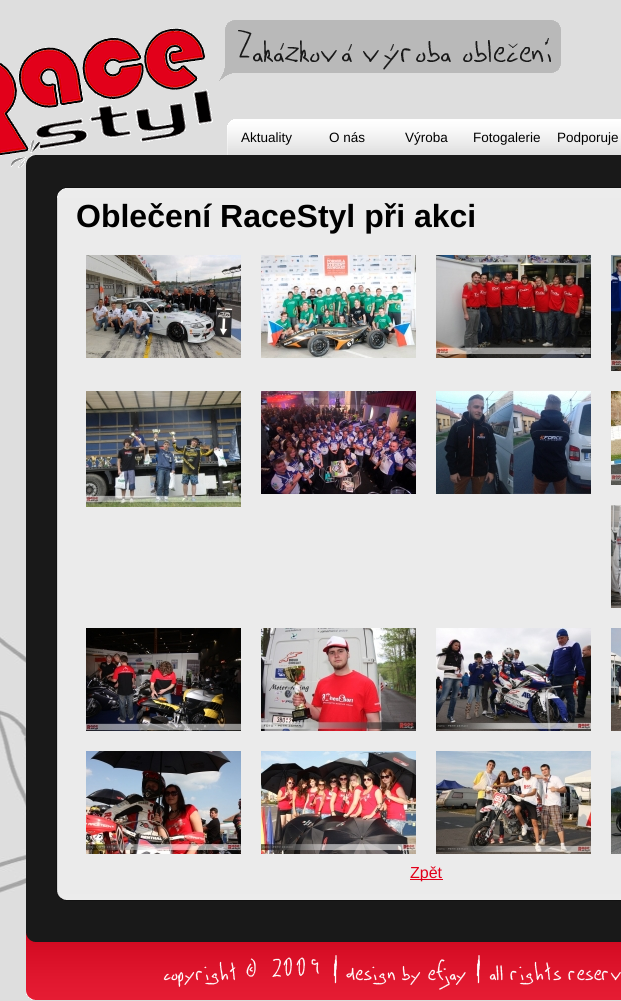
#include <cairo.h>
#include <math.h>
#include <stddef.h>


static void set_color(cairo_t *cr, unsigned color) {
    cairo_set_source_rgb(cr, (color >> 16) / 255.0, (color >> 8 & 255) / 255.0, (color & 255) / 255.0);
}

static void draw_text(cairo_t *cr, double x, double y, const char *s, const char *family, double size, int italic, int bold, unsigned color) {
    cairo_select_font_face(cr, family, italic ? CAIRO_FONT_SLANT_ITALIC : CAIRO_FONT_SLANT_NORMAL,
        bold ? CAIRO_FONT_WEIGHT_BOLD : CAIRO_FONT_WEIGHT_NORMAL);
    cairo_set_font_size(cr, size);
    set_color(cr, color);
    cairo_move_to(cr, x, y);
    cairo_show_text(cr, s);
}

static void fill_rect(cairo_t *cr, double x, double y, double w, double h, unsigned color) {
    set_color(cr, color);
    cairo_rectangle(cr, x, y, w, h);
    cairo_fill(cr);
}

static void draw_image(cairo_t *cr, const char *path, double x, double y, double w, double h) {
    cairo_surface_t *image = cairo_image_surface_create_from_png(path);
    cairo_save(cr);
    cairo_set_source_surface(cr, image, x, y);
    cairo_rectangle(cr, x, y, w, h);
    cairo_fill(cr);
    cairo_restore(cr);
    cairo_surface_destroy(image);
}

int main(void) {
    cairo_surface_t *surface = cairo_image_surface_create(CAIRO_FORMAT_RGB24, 621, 1001);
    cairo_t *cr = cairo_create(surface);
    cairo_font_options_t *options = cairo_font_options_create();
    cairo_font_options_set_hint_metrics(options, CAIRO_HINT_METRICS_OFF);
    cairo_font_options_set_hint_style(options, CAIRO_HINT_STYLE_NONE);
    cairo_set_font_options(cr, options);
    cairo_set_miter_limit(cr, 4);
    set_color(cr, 0xDEDEDE);
    cairo_paint(cr);
    draw_image(cr, "assets/img1.png", 0, 121, 230, 772);
    draw_image(cr, "assets/img2.png", 11, 20, 610, 178);
    draw_image(cr, "assets/img3.png", 0, 28, 213, 128);
    draw_text(cr, 241, 142, "Aktuality", "Liberation Sans", 13.5, 0, 0, 0x000000);
    draw_text(cr, 329, 142, "O nás", "Liberation Sans", 13.5, 0, 0, 0x000000);
    draw_text(cr, 405, 142, "Výroba", "Liberation Sans", 13.5, 0, 0, 0x000000);
    draw_text(cr, 473, 142, "Fotogalerie", "Liberation Sans", 13.5, 0, 0, 0x000000);
    draw_text(cr, 557, 142, "Podporuje", "Liberation Sans", 13.5, 0, 0, 0x000000);
    draw_image(cr, "assets/img4.png", 26, 198, 595, 689);
    draw_text(cr, 76, 227, "Oblečení RaceStyl při akci", "Liberation Sans", 32, 0, 1, 0x000000);
    draw_image(cr, "assets/img5.png", 86, 255, 155, 103);
    draw_image(cr, "assets/img6.png", 261, 255, 155, 103);
    draw_image(cr, "assets/img7.png", 436, 255, 155, 103);
    draw_image(cr, "assets/img8.png", 611, 255, 10, 116);
    draw_image(cr, "assets/img9.png", 86, 391, 155, 116);
    draw_image(cr, "assets/img10.png", 261, 391, 155, 103);
    draw_image(cr, "assets/img11.png", 436, 391, 155, 103);
    draw_image(cr, "assets/img12.png", 611, 391, 10, 94);
    draw_image(cr, "assets/img13.png", 611, 505, 10, 103);
    draw_image(cr, "assets/img14.png", 86, 628, 155, 103);
    draw_image(cr, "assets/img15.png", 261, 628, 155, 103);
    draw_image(cr, "assets/img16.png", 436, 628, 155, 103);
    draw_image(cr, "assets/img17.png", 611, 628, 10, 103);
    draw_image(cr, "assets/img18.png", 86, 751, 155, 103);
    draw_image(cr, "assets/img19.png", 261, 751, 155, 103);
    draw_image(cr, "assets/img20.png", 436, 751, 155, 103);
    draw_image(cr, "assets/img21.png", 611, 751, 10, 103);
    fill_rect(cr, 410, 879, 33, 1, 0xE2001A);
    draw_text(cr, 410, 878, "Zpět", "Liberation Sans", 16, 0, 0, 0xE2001A);
    draw_image(cr, "assets/img22.png", 26, 887, 595, 113);
    cairo_surface_write_to_png(surface, "output.png");
    cairo_font_options_destroy(options);
    cairo_destroy(cr);
    cairo_surface_destroy(surface);
    return 0;
}
